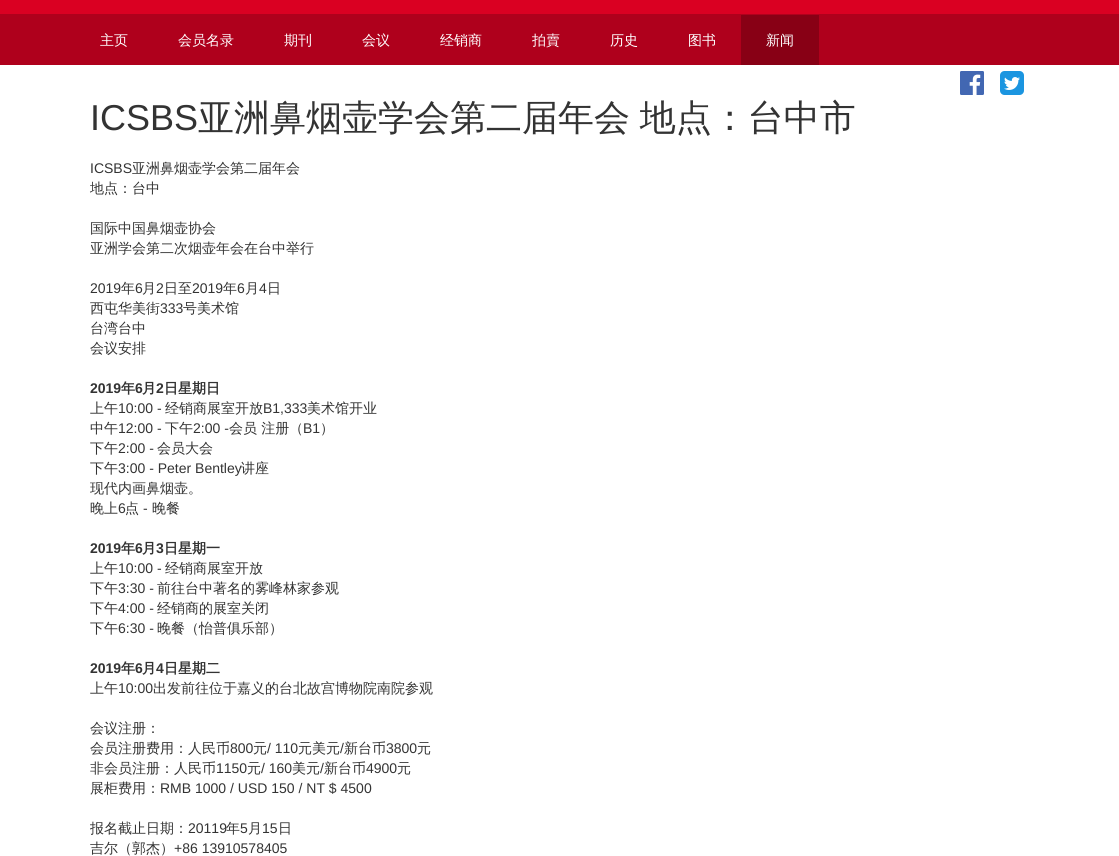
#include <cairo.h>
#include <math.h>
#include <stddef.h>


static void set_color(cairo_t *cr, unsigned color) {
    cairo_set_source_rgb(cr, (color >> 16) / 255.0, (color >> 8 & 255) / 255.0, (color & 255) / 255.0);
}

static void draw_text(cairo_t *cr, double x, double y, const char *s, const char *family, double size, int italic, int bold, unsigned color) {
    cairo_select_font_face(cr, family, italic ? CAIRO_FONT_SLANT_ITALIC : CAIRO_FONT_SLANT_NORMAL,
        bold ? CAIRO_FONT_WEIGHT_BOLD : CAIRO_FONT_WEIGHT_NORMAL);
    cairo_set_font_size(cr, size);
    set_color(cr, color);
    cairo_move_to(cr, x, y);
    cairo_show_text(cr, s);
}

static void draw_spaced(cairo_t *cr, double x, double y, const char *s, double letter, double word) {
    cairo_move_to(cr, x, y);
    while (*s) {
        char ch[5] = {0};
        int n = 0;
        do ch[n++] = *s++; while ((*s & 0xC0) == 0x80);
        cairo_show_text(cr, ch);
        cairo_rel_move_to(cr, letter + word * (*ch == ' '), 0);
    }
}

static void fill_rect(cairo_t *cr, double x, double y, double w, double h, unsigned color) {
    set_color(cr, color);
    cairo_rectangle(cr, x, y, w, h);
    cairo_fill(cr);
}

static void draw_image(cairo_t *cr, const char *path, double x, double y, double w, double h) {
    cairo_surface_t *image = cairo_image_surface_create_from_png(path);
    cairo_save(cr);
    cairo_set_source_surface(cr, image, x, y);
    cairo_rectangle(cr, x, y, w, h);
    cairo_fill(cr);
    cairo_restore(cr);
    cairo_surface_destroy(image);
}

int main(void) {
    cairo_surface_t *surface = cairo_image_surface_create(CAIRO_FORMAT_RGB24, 1119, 856);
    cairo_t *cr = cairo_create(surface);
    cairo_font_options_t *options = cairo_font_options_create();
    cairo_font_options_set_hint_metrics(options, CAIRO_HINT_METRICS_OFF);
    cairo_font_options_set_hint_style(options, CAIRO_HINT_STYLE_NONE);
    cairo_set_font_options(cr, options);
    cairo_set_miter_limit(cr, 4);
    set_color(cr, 0xFFFFFF);
    cairo_paint(cr);
    fill_rect(cr, 0, 0, 1119, 14, 0xDA0022);
    fill_rect(cr, 0, 14, 1119, 51, 0xAF001C);
    draw_text(cr, 100, 45, "主页", "WenQuanYi Zen Hei Medium", 14, 0, 0, 0xFFFFFF);
    draw_text(cr, 178, 45, "会员名录", "WenQuanYi Zen Hei Medium", 14, 0, 0, 0xFFFFFF);
    draw_text(cr, 284, 45, "期刊", "WenQuanYi Zen Hei Medium", 14, 0, 0, 0xFFFFFF);
    draw_text(cr, 362, 45, "会议", "WenQuanYi Zen Hei Medium", 14, 0, 0, 0xFFFFFF);
    draw_text(cr, 440, 45, "经销商", "WenQuanYi Zen Hei Medium", 14, 0, 0, 0xFFFFFF);
    draw_text(cr, 532, 45, "拍賣", "WenQuanYi Zen Hei Medium", 14, 0, 0, 0xFFFFFF);
    draw_text(cr, 610, 45, "历史", "WenQuanYi Zen Hei Medium", 14, 0, 0, 0xFFFFFF);
    draw_text(cr, 688, 45, "图书", "WenQuanYi Zen Hei Medium", 14, 0, 0, 0xFFFFFF);
    fill_rect(cr, 741, 15, 78, 50, 0x880015);
    draw_text(cr, 766, 45, "新闻", "WenQuanYi Zen Hei Medium", 14, 0, 0, 0xFFFFFF);
    draw_image(cr, "assets/img1.png", 960, 71, 24, 24);
    draw_image(cr, "assets/img2.png", 1000, 71, 24, 24);
    draw_text(cr, 90, 130, "ICSBS", "Liberation Sans", 36, 0, 0, 0x333333);
    cairo_select_font_face(cr, "WenQuanYi Zen Hei Medium", CAIRO_FONT_SLANT_NORMAL, CAIRO_FONT_WEIGHT_NORMAL);
    draw_spaced(cr, 198, 130, "亚洲鼻烟壶学会第二届年会 地点：台中市", 0, -1);
    draw_text(cr, 90, 173, "ICSBS", "Liberation Sans", 14, 0, 0, 0x333333);
    draw_text(cr, 132, 173, "亚洲鼻烟壶学会第二届年会", "WenQuanYi Zen Hei Medium", 14, 0, 0, 0x333333);
    draw_text(cr, 90, 193, "地点：台中", "WenQuanYi Zen Hei Medium", 14, 0, 0, 0x333333);
    draw_text(cr, 90, 233, "国际中国鼻烟壶协会", "WenQuanYi Zen Hei Medium", 14, 0, 0, 0x333333);
    draw_text(cr, 90, 253, "亚洲学会第二次烟壶年会在台中举行", "WenQuanYi Zen Hei Medium", 14, 0, 0, 0x333333);
    draw_text(cr, 90, 293, "2019", "Liberation Sans", 14, 0, 0, 0x333333);
    draw_text(cr, 121, 293, "年", "WenQuanYi Zen Hei Medium", 14, 0, 0, 0x333333);
    draw_text(cr, 135, 293, "6", "Liberation Sans", 14, 0, 0, 0x333333);
    draw_text(cr, 142, 293, "月", "WenQuanYi Zen Hei Medium", 14, 0, 0, 0x333333);
    draw_text(cr, 156, 293, "2", "Liberation Sans", 14, 0, 0, 0x333333);
    draw_text(cr, 164, 293, "日至", "WenQuanYi Zen Hei Medium", 14, 0, 0, 0x333333);
    draw_text(cr, 192, 293, "2019", "Liberation Sans", 14, 0, 0, 0x333333);
    draw_text(cr, 223, 293, "年", "WenQuanYi Zen Hei Medium", 14, 0, 0, 0x333333);
    draw_text(cr, 237, 293, "6", "Liberation Sans", 14, 0, 0, 0x333333);
    draw_text(cr, 245, 293, "月", "WenQuanYi Zen Hei Medium", 14, 0, 0, 0x333333);
    draw_text(cr, 259, 293, "4", "Liberation Sans", 14, 0, 0, 0x333333);
    draw_text(cr, 267, 293, "日", "WenQuanYi Zen Hei Medium", 14, 0, 0, 0x333333);
    draw_text(cr, 90, 313, "西屯华美街", "WenQuanYi Zen Hei Medium", 14, 0, 0, 0x333333);
    draw_text(cr, 160, 313, "333", "Liberation Sans", 14, 0, 0, 0x333333);
    draw_text(cr, 183, 313, "号美术馆", "WenQuanYi Zen Hei Medium", 14, 0, 0, 0x333333);
    draw_text(cr, 90, 333, "台湾台中", "WenQuanYi Zen Hei Medium", 14, 0, 0, 0x333333);
    draw_text(cr, 90, 353, "会议安排", "WenQuanYi Zen Hei Medium", 14, 0, 0, 0x333333);
    draw_text(cr, 90, 393, "2019", "Liberation Sans", 14, 0, 1, 0x333333);
    draw_text(cr, 121, 393, "年", "WenQuanYi Zen Hei", 14, 0, 1, 0x333333);
    draw_text(cr, 135, 393, "6", "Liberation Sans", 14, 0, 1, 0x333333);
    draw_text(cr, 142, 393, "月", "WenQuanYi Zen Hei", 14, 0, 1, 0x333333);
    draw_text(cr, 156, 393, "2", "Liberation Sans", 14, 0, 1, 0x333333);
    draw_text(cr, 164, 393, "日星期日", "WenQuanYi Zen Hei", 14, 0, 1, 0x333333);
    draw_text(cr, 90, 413, "上午", "WenQuanYi Zen Hei Medium", 14, 0, 0, 0x333333);
    draw_text(cr, 118, 413, "10:00 -", "Liberation Sans", 14, 0, 0, 0x333333);
    draw_text(cr, 165, 413, "经销商展室开放", "WenQuanYi Zen Hei Medium", 14, 0, 0, 0x333333);
    draw_text(cr, 263, 413, "B1,333", "Liberation Sans", 14, 0, 0, 0x333333);
    draw_text(cr, 307, 413, "美术馆开业", "WenQuanYi Zen Hei Medium", 14, 0, 0, 0x333333);
    draw_text(cr, 90, 433, "中午", "WenQuanYi Zen Hei Medium", 14, 0, 0, 0x333333);
    draw_text(cr, 118, 433, "12:00 -", "Liberation Sans", 14, 0, 0, 0x333333);
    draw_text(cr, 165, 433, "下午", "WenQuanYi Zen Hei Medium", 14, 0, 0, 0x333333);
    draw_text(cr, 193, 433, "2:00 -", "Liberation Sans", 14, 0, 0, 0x333333);
    draw_text(cr, 229, 433, "会员 注册（", "WenQuanYi Zen Hei Medium", 14, 0, 0, 0x333333);
    draw_text(cr, 303, 433, "B1", "Liberation Sans", 14, 0, 0, 0x333333);
    draw_text(cr, 320, 433, "）", "WenQuanYi Zen Hei Medium", 14, 0, 0, 0x333333);
    draw_text(cr, 90, 453, "下午", "WenQuanYi Zen Hei Medium", 14, 0, 0, 0x333333);
    draw_text(cr, 118, 453, "2:00 -", "Liberation Sans", 14, 0, 0, 0x333333);
    draw_text(cr, 157, 453, "会员大会", "WenQuanYi Zen Hei Medium", 14, 0, 0, 0x333333);
    draw_text(cr, 90, 473, "下午", "WenQuanYi Zen Hei Medium", 14, 0, 0, 0x333333);
    draw_text(cr, 118, 473, "3:00 - Peter Bentley", "Liberation Sans", 14, 0, 0, 0x333333);
    draw_text(cr, 241, 473, "讲座", "WenQuanYi Zen Hei Medium", 14, 0, 0, 0x333333);
    draw_text(cr, 90, 493, "现代内画鼻烟壶。", "WenQuanYi Zen Hei Medium", 14, 0, 0, 0x333333);
    draw_text(cr, 90, 513, "晚上", "WenQuanYi Zen Hei Medium", 14, 0, 0, 0x333333);
    draw_text(cr, 118, 513, "6", "Liberation Sans", 14, 0, 0, 0x333333);
    draw_text(cr, 125, 513, "点", "WenQuanYi Zen Hei Medium", 14, 0, 0, 0x333333);
    draw_text(cr, 143, 513, "-", "Liberation Sans", 14, 0, 0, 0x333333);
    draw_text(cr, 152, 513, "晚餐", "WenQuanYi Zen Hei Medium", 14, 0, 0, 0x333333);
    draw_text(cr, 90, 553, "2019", "Liberation Sans", 14, 0, 1, 0x333333);
    draw_text(cr, 121, 553, "年", "WenQuanYi Zen Hei", 14, 0, 1, 0x333333);
    draw_text(cr, 135, 553, "6", "Liberation Sans", 14, 0, 1, 0x333333);
    draw_text(cr, 142, 553, "月", "WenQuanYi Zen Hei", 14, 0, 1, 0x333333);
    draw_text(cr, 156, 553, "3", "Liberation Sans", 14, 0, 1, 0x333333);
    draw_text(cr, 164, 553, "日星期一", "WenQuanYi Zen Hei", 14, 0, 1, 0x333333);
    draw_text(cr, 90, 573, "上午", "WenQuanYi Zen Hei Medium", 14, 0, 0, 0x333333);
    draw_text(cr, 118, 573, "10:00 -", "Liberation Sans", 14, 0, 0, 0x333333);
    draw_text(cr, 165, 573, "经销商展室开放", "WenQuanYi Zen Hei Medium", 14, 0, 0, 0x333333);
    draw_text(cr, 90, 593, "下午", "WenQuanYi Zen Hei Medium", 14, 0, 0, 0x333333);
    draw_text(cr, 118, 593, "3:30 -", "Liberation Sans", 14, 0, 0, 0x333333);
    draw_text(cr, 157, 593, "前往台中著名的雾峰林家参观", "WenQuanYi Zen Hei Medium", 14, 0, 0, 0x333333);
    draw_text(cr, 90, 613, "下午", "WenQuanYi Zen Hei Medium", 14, 0, 0, 0x333333);
    draw_text(cr, 118, 613, "4:00 -", "Liberation Sans", 14, 0, 0, 0x333333);
    draw_text(cr, 157, 613, "经销商的展室关闭", "WenQuanYi Zen Hei Medium", 14, 0, 0, 0x333333);
    draw_text(cr, 90, 633, "下午", "WenQuanYi Zen Hei Medium", 14, 0, 0, 0x333333);
    draw_text(cr, 118, 633, "6:30 -", "Liberation Sans", 14, 0, 0, 0x333333);
    draw_text(cr, 157, 633, "晚餐（怡普俱乐部）", "WenQuanYi Zen Hei Medium", 14, 0, 0, 0x333333);
    draw_text(cr, 90, 673, "2019", "Liberation Sans", 14, 0, 1, 0x333333);
    draw_text(cr, 121, 673, "年", "WenQuanYi Zen Hei", 14, 0, 1, 0x333333);
    draw_text(cr, 135, 673, "6", "Liberation Sans", 14, 0, 1, 0x333333);
    draw_text(cr, 142, 673, "月", "WenQuanYi Zen Hei", 14, 0, 1, 0x333333);
    draw_text(cr, 156, 673, "4", "Liberation Sans", 14, 0, 1, 0x333333);
    draw_text(cr, 164, 673, "日星期二", "WenQuanYi Zen Hei", 14, 0, 1, 0x333333);
    draw_text(cr, 90, 693, "上午", "WenQuanYi Zen Hei Medium", 14, 0, 0, 0x333333);
    draw_text(cr, 118, 693, "10:00", "Liberation Sans", 14, 0, 0, 0x333333);
    draw_text(cr, 153, 693, "出发前往位于嘉义的台北故宫博物院南院参观", "WenQuanYi Zen Hei Medium", 14, 0, 0, 0x333333);
    draw_text(cr, 90, 733, "会议注册：", "WenQuanYi Zen Hei Medium", 14, 0, 0, 0x333333);
    draw_text(cr, 90, 753, "会员注册费用：人民币", "WenQuanYi Zen Hei Medium", 14, 0, 0, 0x333333);
    draw_text(cr, 230, 753, "800", "Liberation Sans", 14, 0, 0, 0x333333);
    draw_text(cr, 253, 753, "元", "WenQuanYi Zen Hei Medium", 14, 0, 0, 0x333333);
    draw_text(cr, 267, 753, "/ 110", "Liberation Sans", 14, 0, 0, 0x333333);
    draw_text(cr, 298, 753, "元美元", "WenQuanYi Zen Hei Medium", 14, 0, 0, 0x333333);
    draw_text(cr, 340, 753, "/", "Liberation Sans", 14, 0, 0, 0x333333);
    draw_text(cr, 344, 753, "新台币", "WenQuanYi Zen Hei Medium", 14, 0, 0, 0x333333);
    draw_text(cr, 386, 753, "3800", "Liberation Sans", 14, 0, 0, 0x333333);
    draw_text(cr, 417, 753, "元", "WenQuanYi Zen Hei Medium", 14, 0, 0, 0x333333);
    draw_text(cr, 90, 773, "非会员注册：人民币", "WenQuanYi Zen Hei Medium", 14, 0, 0, 0x333333);
    draw_text(cr, 216, 773, "1150", "Liberation Sans", 14, 0, 0, 0x333333);
    draw_text(cr, 247, 773, "元", "WenQuanYi Zen Hei Medium", 14, 0, 0, 0x333333);
    draw_text(cr, 261, 773, "/ 160", "Liberation Sans", 14, 0, 0, 0x333333);
    draw_text(cr, 292, 773, "美元", "WenQuanYi Zen Hei Medium", 14, 0, 0, 0x333333);
    draw_text(cr, 320, 773, "/", "Liberation Sans", 14, 0, 0, 0x333333);
    draw_text(cr, 324, 773, "新台币", "WenQuanYi Zen Hei Medium", 14, 0, 0, 0x333333);
    draw_text(cr, 366, 773, "4900", "Liberation Sans", 14, 0, 0, 0x333333);
    draw_text(cr, 397, 773, "元", "WenQuanYi Zen Hei Medium", 14, 0, 0, 0x333333);
    draw_text(cr, 90, 793, "展柜费用：", "WenQuanYi Zen Hei Medium", 14, 0, 0, 0x333333);
    draw_text(cr, 160, 793, "RMB 1000 / USD 150 / NT $ 4500", "Liberation Sans", 14, 0, 0, 0x333333);
    draw_text(cr, 90, 833, "报名截止日期：", "WenQuanYi Zen Hei Medium", 14, 0, 0, 0x333333);
    draw_text(cr, 188, 833, "20119", "Liberation Sans", 14, 0, 0, 0x333333);
    draw_text(cr, 226, 833, "年", "WenQuanYi Zen Hei Medium", 14, 0, 0, 0x333333);
    draw_text(cr, 240, 833, "5", "Liberation Sans", 14, 0, 0, 0x333333);
    draw_text(cr, 248, 833, "月", "WenQuanYi Zen Hei Medium", 14, 0, 0, 0x333333);
    draw_text(cr, 262, 833, "15", "Liberation Sans", 14, 0, 0, 0x333333);
    draw_text(cr, 278, 833, "日", "WenQuanYi Zen Hei Medium", 14, 0, 0, 0x333333);
    draw_text(cr, 90, 853, "吉尔（郭杰）", "WenQuanYi Zen Hei Medium", 14, 0, 0, 0x333333);
    draw_text(cr, 174, 853, "+86 13910578405", "Liberation Sans", 14, 0, 0, 0x333333);
    cairo_surface_write_to_png(surface, "output.png");
    cairo_font_options_destroy(options);
    cairo_destroy(cr);
    cairo_surface_destroy(surface);
    return 0;
}
